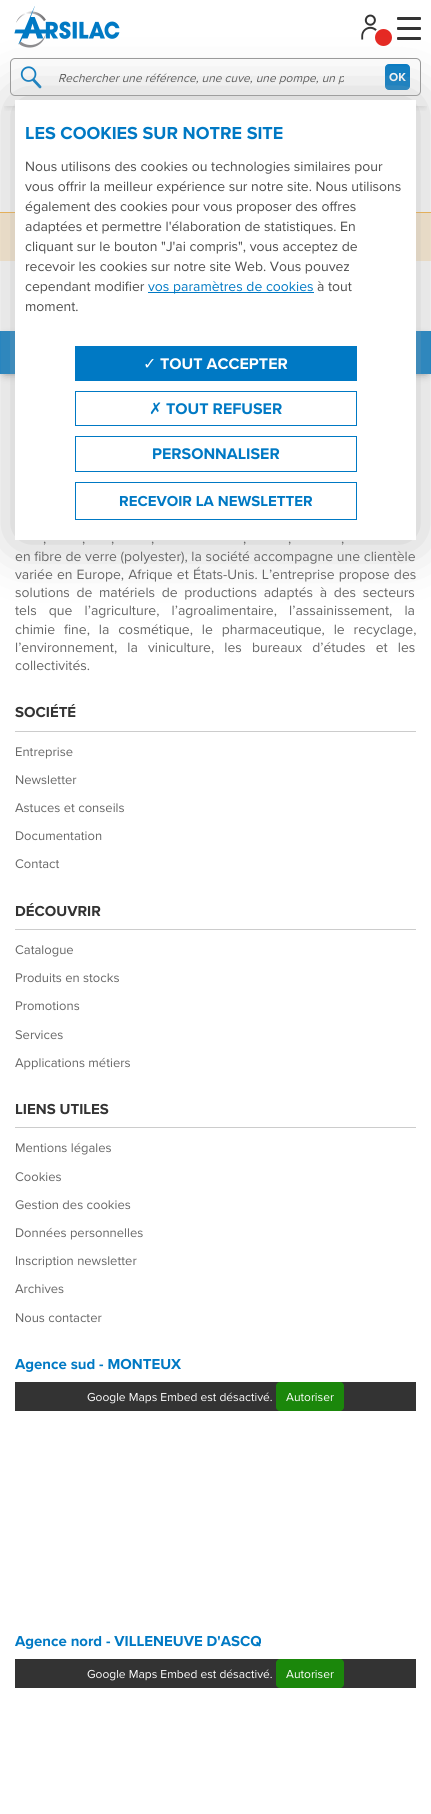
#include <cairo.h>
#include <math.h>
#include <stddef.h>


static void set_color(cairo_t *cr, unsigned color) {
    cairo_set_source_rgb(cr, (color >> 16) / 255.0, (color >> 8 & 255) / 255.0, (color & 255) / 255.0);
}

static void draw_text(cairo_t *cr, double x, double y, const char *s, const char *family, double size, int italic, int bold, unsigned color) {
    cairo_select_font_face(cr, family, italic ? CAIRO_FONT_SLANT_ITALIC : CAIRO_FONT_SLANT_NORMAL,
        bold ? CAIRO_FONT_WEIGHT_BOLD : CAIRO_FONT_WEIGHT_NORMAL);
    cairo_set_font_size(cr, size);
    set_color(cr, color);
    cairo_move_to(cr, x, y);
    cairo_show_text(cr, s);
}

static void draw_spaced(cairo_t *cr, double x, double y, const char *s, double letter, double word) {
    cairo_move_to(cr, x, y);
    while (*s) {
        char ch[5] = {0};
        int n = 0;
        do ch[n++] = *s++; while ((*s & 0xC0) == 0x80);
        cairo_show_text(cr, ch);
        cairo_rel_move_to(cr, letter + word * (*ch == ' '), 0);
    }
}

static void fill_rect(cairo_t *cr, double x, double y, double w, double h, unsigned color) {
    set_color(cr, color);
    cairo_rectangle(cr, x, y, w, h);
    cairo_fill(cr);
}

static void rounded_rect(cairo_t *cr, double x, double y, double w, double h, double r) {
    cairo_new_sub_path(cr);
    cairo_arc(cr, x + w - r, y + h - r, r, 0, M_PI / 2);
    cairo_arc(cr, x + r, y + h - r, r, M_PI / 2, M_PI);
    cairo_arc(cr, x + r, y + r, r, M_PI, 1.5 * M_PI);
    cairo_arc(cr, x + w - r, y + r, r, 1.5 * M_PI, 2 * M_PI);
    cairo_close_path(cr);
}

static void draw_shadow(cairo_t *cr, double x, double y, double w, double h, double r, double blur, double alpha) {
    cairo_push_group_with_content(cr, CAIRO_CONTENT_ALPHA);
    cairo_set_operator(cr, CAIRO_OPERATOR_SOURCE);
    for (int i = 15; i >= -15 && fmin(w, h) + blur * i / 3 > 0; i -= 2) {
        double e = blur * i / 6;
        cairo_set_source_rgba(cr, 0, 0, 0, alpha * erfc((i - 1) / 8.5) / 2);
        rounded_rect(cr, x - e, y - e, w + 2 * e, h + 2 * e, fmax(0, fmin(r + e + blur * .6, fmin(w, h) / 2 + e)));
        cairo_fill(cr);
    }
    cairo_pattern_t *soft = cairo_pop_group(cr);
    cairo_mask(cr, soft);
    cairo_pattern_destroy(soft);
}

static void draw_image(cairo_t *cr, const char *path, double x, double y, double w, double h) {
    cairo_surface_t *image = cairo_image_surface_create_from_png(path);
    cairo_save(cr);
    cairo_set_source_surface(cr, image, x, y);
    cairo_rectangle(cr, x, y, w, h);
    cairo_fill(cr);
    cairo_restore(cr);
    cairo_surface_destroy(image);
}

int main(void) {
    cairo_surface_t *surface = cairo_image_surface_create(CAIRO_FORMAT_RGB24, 431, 1814);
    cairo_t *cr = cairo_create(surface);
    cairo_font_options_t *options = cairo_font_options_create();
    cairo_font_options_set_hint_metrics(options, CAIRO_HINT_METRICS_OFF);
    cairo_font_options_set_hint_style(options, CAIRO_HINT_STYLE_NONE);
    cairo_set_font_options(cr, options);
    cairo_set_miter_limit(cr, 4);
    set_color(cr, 0xFFFFFF);
    cairo_paint(cr);
    cairo_save(cr);
    cairo_rectangle(cr, 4, 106, 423, 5);
    cairo_clip(cr);
    set_color(cr, 0x000000);
    draw_shadow(cr, 7, 14, 417, 92, 0, 4, 0.2);
    cairo_restore(cr);
    draw_image(cr, "assets/img1.png", 14, 6, 106, 42);
    draw_image(cr, "assets/img2.png", 361, 14, 17, 26);
    set_color(cr, 0xE52822);
    cairo_arc(cr, 383.5, 37.5, 9.5, 0, 2 * M_PI);
    cairo_fill_preserve(cr);
    set_color(cr, 0xFFFFFF);
    cairo_stroke(cr);
    set_color(cr, 0x333333);
    rounded_rect(cr, 397, 17, 24, 3, 1);
    cairo_fill(cr);
    rounded_rect(cr, 397, 27, 24, 3, 1);
    cairo_fill(cr);
    rounded_rect(cr, 397, 37, 24, 3, 1);
    cairo_fill(cr);
    rounded_rect(cr, 10.5, 58.5, 410, 37, 4.5);
    set_color(cr, 0x999999);
    cairo_set_line_width(cr, 1);
    cairo_stroke(cr);
    draw_image(cr, "assets/img3.png", 20, 66, 22, 23);
    cairo_save(cr);
    cairo_rectangle(cr, 58, 69, 286, 17);
    cairo_clip(cr);
    draw_text(cr, 58, 82, "Rechercher une référence, une cuve, une pompe, un p", "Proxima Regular", 12, 1, 0, 0x4D4D4D);
    cairo_restore(cr);
    set_color(cr, 0x0079C4);
    rounded_rect(cr, 385.5, 64.5, 24, 25, 3.5);
    cairo_fill_preserve(cr);
    cairo_stroke(cr);
    draw_text(cr, 389, 81, "OK", "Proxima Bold", 12, 0, 1, 0xFFFFFF);
    fill_rect(cr, 0, 213, 431, 48, 0xFDECD0);
    fill_rect(cr, 0, 212, 431, 1, 0xF8B03C);
    set_color(cr, 0x000000);
    draw_shadow(cr, 5, 339, 421, 33, 0, 5, 0.7);
    fill_rect(cr, 0, 331, 431, 43, 0x0079C4);
    set_color(cr, 0xABABAB);
    draw_shadow(cr, 15, 100, 401, 440, 0, 29, 0.75);
    fill_rect(cr, 15, 100, 401, 440, 0xFFFFFF);
    draw_text(cr, 25, 139, "LES COOKIES SUR NOTRE SITE", "Proxima Bold", 18, 0, 1, 0x0079C4);
    draw_text(cr, 25, 171, "Nous utilisons des cookies ou technologies similaires pour", "Proxima Regular", 14, 0, 0, 0x4D4D4D);
    draw_text(cr, 25, 191, "vous offrir la meilleur expérience sur notre site. Nous utilisons", "Proxima Regular", 14, 0, 0, 0x4D4D4D);
    draw_text(cr, 25, 211, "également des cookies pour vous proposer des offres", "Proxima Regular", 14, 0, 0, 0x4D4D4D);
    draw_text(cr, 25, 231, "adaptées et permettre l'élaboration de statistiques. En", "Proxima Regular", 14, 0, 0, 0x4D4D4D);
    draw_text(cr, 25, 251, "cliquant sur le bouton \"J'ai compris\", vous acceptez de", "Proxima Regular", 14, 0, 0, 0x4D4D4D);
    draw_text(cr, 25, 271, "recevoir les cookies sur notre site Web. Vous pouvez", "Proxima Regular", 14, 0, 0, 0x4D4D4D);
    draw_text(cr, 25, 291, "cependant modifier", "Proxima Regular", 14, 0, 0, 0x4D4D4D);
    fill_rect(cr, 148, 292, 166, 1, 0x0079C4);
    draw_text(cr, 148, 291, "vos paramètres de cookies", "Proxima Regular", 14, 0, 0, 0x0079C4);
    draw_text(cr, 317, 291, "à tout", "Proxima Regular", 14, 0, 0, 0x4D4D4D);
    draw_text(cr, 25, 311, "moment.", "Proxima Regular", 14, 0, 0, 0x4D4D4D);
    fill_rect(cr, 75, 346, 282, 35, 0x0079C4);
    draw_text(cr, 143, 369, "✓", "DejaVu Sans", 16, 0, 0, 0xFFFFFF);
    draw_text(cr, 160, 369, "TOUT ACCEPTER", "Proxima Bold", 16, 0, 1, 0xFFFFFF);
    cairo_rectangle(cr, 75.5, 391.5, 281, 34);
    set_color(cr, 0x0079C4);
    cairo_stroke(cr);
    draw_text(cr, 149, 414, "✗", "DejaVu Sans", 16, 0, 0, 0x0079C4);
    draw_text(cr, 166, 414, "TOUT REFUSER", "Proxima Bold", 16, 0, 1, 0x0079C4);
    cairo_rectangle(cr, 75.5, 436.5, 281, 35);
    cairo_stroke(cr);
    draw_text(cr, 152, 459, "PERSONNALISER", "Proxima Bold", 16, 0, 1, 0x0079C4);
    cairo_rectangle(cr, 75.5, 482.5, 281, 37);
    cairo_stroke(cr);
    draw_text(cr, 119, 506, "RECEVOIR LA NEWSLETTER", "Proxima Bold", 15, 0, 1, 0x0079C4);
    cairo_select_font_face(cr, "Proxima Regular", CAIRO_FONT_SLANT_NORMAL, CAIRO_FONT_WEIGHT_NORMAL);
    cairo_set_font_size(cr, 14);
    set_color(cr, 0x666666);
    draw_spaced(cr, 43, 543, ",", 0, 1);
    draw_spaced(cr, 82, 543, ",", 0, 1);
    draw_spaced(cr, 111, 543, ",", 0, 1);
    draw_spaced(cr, 151, 543, ",", 0, 1);
    draw_spaced(cr, 243, 543, ",", 0, 1);
    draw_spaced(cr, 288, 543, ",", 0, 1);
    draw_spaced(cr, 341, 543, ",", 0, 1);
    draw_text(cr, 15, 561, "en fibre de verre (polyester), la société accompagne une clientèle", "Proxima Regular", 14, 0, 0, 0x666666);
    draw_spaced(cr, 15, 579, "variée en Europe, Afrique et États-Unis. L’entreprise propose des", 0, 0.5);
    draw_spaced(cr, 15, 597, "solutions de matériels de productions adaptés à des secteurs", 0, 3);
    draw_spaced(cr, 15, 615, "tels que l’agriculture, l’agroalimentaire, l’assainissement, la", 0, 8.5);
    draw_spaced(cr, 15, 634, "chimie fine, la cosmétique, le pharmaceutique, le recyclage,", 0, 5.25);
    draw_spaced(cr, 15, 652, "l’environnement, la viniculture, les bureaux d’études et les", 0, 6.5);
    draw_text(cr, 15, 670, "collectivités.", "Proxima Regular", 14, 0, 0, 0x666666);
    fill_rect(cr, 15, 731, 401, 1, 0xCCCCCC);
    draw_text(cr, 15, 717, "SOCIÉTÉ", "Proxima Bold", 15, 0, 1, 0x333333);
    draw_text(cr, 15, 756, "Entreprise", "Proxima Regular", 13, 0, 0, 0x666666);
    draw_text(cr, 15, 784, "Newsletter", "Proxima Regular", 13, 0, 0, 0x666666);
    draw_text(cr, 15, 812, "Astuces et conseils", "Proxima Regular", 13, 0, 0, 0x666666);
    draw_text(cr, 15, 840, "Documentation", "Proxima Regular", 13, 0, 0, 0x666666);
    draw_text(cr, 15, 868, "Contact", "Proxima Regular", 13, 0, 0, 0x666666);
    fill_rect(cr, 15, 929, 401, 1, 0xCCCCCC);
    draw_text(cr, 15, 916, "DÉCOUVRIR", "Proxima Bold", 15, 0, 1, 0x333333);
    draw_text(cr, 15, 954, "Catalogue", "Proxima Regular", 13, 0, 0, 0x666666);
    draw_text(cr, 15, 982, "Produits en stocks", "Proxima Regular", 13, 0, 0, 0x666666);
    draw_text(cr, 15, 1010, "Promotions", "Proxima Regular", 13, 0, 0, 0x666666);
    draw_text(cr, 15, 1039, "Services", "Proxima Regular", 13, 0, 0, 0x666666);
    draw_text(cr, 15, 1067, "Applications métiers", "Proxima Regular", 13, 0, 0, 0x666666);
    fill_rect(cr, 15, 1127, 401, 1, 0xCCCCCC);
    draw_text(cr, 15, 1114, "LIENS UTILES", "Proxima Bold", 15, 0, 1, 0x333333);
    draw_text(cr, 15, 1152, "Mentions légales", "Proxima Regular", 13, 0, 0, 0x666666);
    draw_text(cr, 15, 1181, "Cookies", "Proxima Regular", 13, 0, 0, 0x666666);
    draw_text(cr, 15, 1209, "Gestion des cookies", "Proxima Regular", 13, 0, 0, 0x666666);
    draw_text(cr, 15, 1237, "Données personnelles", "Proxima Regular", 13, 0, 0, 0x666666);
    draw_text(cr, 15, 1265, "Inscription newsletter", "Proxima Regular", 13, 0, 0, 0x666666);
    draw_text(cr, 15, 1293, "Archives", "Proxima Regular", 13, 0, 0, 0x666666);
    draw_text(cr, 15, 1322, "Nous contacter", "Proxima Regular", 13, 0, 0, 0x666666);
    draw_text(cr, 15, 1369, "Agence sud - MONTEUX", "Proxima Bold", 15, 0, 1, 0x0079C4);
    fill_rect(cr, 15, 1382, 401, 29, 0x333333);
    draw_text(cr, 87, 1401, "Google Maps Embed est désactivé.", "Proxima Regular", 12, 0, 0, 0xFFFFFF);
    set_color(cr, 0x1B870B);
    rounded_rect(cr, 276, 1382, 68, 29, 4);
    cairo_fill(cr);
    draw_text(cr, 286, 1401, "Autoriser", "Proxima Regular", 12, 0, 0, 0xFFFFFF);
    draw_text(cr, 15, 1646, "Agence nord - VILLENEUVE D'ASCQ", "Proxima Bold", 15, 0, 1, 0x0079C4);
    fill_rect(cr, 15, 1659, 401, 29, 0x333333);
    draw_text(cr, 87, 1678, "Google Maps Embed est désactivé.", "Proxima Regular", 12, 0, 0, 0xFFFFFF);
    set_color(cr, 0x1B870B);
    rounded_rect(cr, 276, 1659, 68, 29, 4);
    cairo_fill(cr);
    draw_text(cr, 286, 1678, "Autoriser", "Proxima Regular", 12, 0, 0, 0xFFFFFF);
    cairo_surface_write_to_png(surface, "output.png");
    cairo_font_options_destroy(options);
    cairo_destroy(cr);
    cairo_surface_destroy(surface);
    return 0;
}
